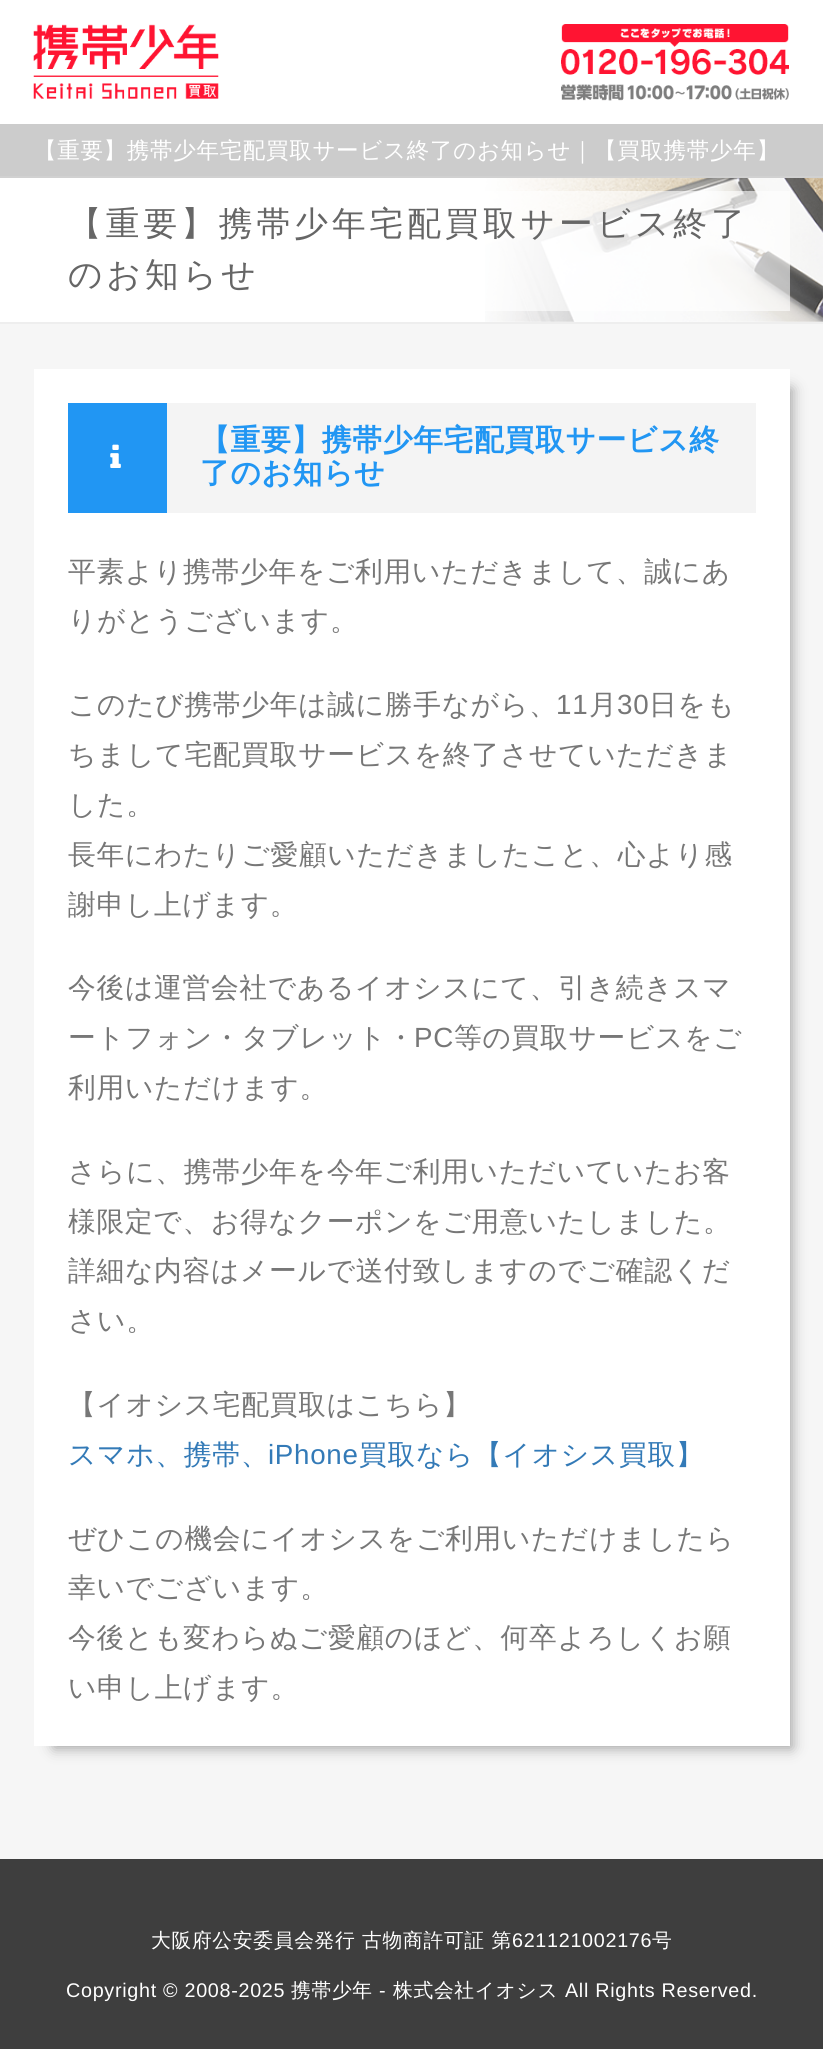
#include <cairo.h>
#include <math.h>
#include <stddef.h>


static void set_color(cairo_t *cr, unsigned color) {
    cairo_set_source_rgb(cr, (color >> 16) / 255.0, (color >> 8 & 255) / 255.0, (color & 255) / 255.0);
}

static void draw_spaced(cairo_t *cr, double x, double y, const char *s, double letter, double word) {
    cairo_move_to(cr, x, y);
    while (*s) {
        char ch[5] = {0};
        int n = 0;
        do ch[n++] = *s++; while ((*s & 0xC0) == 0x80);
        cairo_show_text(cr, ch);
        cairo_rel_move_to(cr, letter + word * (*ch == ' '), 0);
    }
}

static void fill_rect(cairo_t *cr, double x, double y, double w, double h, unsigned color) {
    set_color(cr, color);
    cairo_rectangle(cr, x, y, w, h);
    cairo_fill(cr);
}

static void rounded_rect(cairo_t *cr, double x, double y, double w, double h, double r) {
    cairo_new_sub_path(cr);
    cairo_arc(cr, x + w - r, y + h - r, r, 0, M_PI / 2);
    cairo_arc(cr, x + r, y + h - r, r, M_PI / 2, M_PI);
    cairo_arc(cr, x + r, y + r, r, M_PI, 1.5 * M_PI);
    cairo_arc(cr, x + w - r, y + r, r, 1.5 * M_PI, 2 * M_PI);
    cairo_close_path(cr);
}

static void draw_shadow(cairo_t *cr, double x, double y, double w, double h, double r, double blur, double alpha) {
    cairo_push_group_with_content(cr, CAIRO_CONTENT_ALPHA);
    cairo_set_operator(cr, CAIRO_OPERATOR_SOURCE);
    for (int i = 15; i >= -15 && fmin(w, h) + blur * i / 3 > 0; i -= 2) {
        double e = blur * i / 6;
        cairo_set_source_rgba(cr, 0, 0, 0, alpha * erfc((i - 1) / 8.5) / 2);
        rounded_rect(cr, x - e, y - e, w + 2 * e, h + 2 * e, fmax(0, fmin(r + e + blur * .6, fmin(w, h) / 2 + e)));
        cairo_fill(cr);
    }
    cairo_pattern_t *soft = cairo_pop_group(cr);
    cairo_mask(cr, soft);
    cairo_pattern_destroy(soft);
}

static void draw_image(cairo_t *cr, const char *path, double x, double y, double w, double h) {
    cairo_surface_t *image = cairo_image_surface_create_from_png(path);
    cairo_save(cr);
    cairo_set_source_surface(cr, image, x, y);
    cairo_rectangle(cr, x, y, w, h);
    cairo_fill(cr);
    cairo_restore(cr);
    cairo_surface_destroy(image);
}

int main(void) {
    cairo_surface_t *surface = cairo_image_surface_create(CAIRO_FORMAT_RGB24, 823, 2049);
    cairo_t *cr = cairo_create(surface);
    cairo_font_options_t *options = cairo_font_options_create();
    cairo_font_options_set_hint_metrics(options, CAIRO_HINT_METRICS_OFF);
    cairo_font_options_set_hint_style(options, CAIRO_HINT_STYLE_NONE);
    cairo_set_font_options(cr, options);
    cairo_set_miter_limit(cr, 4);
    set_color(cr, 0xF6F6F6);
    cairo_paint(cr);
    fill_rect(cr, 0, 176, 823, 2, 0xD1D1D1);
    fill_rect(cr, 0, 0, 823, 124, 0xFFFFFF);
    draw_image(cr, "assets/img1.png", 33, 24, 186, 75);
    draw_image(cr, "assets/img2.png", 561, 24, 228, 77);
    fill_rect(cr, 0, 124, 823, 52, 0xCCCCCC);
    cairo_select_font_face(cr, "WenQuanYi Zen Hei Medium", CAIRO_FONT_SLANT_NORMAL, CAIRO_FONT_WEIGHT_NORMAL);
    cairo_set_font_size(cr, 22.5);
    set_color(cr, 0xFFFFFF);
    draw_spaced(cr, 34, 158, "【重要】携帯少年宅配買取サービス終了のお知らせ｜【買取携帯少年】", 0.7, 0);
    fill_rect(cr, 0, 178, 823, 144, 0xFFFFFF);
    fill_rect(cr, 0, 322, 823, 2, 0xEEEEEE);
    draw_image(cr, "assets/img3.png", 485, 178, 338, 144);
    cairo_set_source_rgba(cr, 1, 1, 1, 0.6);
    cairo_rectangle(cr, 485, 191, 305, 120);
    cairo_fill(cr);
    cairo_set_font_size(cr, 33.7);
    set_color(cr, 0x666666);
    draw_spaced(cr, 68, 235, "【重要】携帯少年宅配買取サービス終了", 4, 0);
    draw_spaced(cr, 68, 286, "のお知らせ", 4, 0);
    set_color(cr, 0x9E9E9E);
    draw_shadow(cr, 54, 389, 738, 1359, 0, 7, 1);
    fill_rect(cr, 34, 369, 756, 1377, 0xFFFFFF);
    fill_rect(cr, 167, 403, 589, 110, 0xF4F4F4);
    fill_rect(cr, 68, 403, 99, 110, 0x2196F3);
    draw_image(cr, "assets/img4.png", 110, 444, 11, 24);
    cairo_select_font_face(cr, "WenQuanYi Zen Hei", CAIRO_FONT_SLANT_NORMAL, CAIRO_FONT_WEIGHT_BOLD);
    cairo_set_font_size(cr, 29.75);
    draw_spaced(cr, 200, 450, "【重要】携帯少年宅配買取サービス終", 0.7, 0);
    draw_spaced(cr, 200, 483, "了のお知らせ", 0.7, 0);
    cairo_select_font_face(cr, "WenQuanYi Zen Hei Medium", CAIRO_FONT_SLANT_NORMAL, CAIRO_FONT_WEIGHT_NORMAL);
    cairo_set_font_size(cr, 27.75);
    set_color(cr, 0x777777);
    draw_spaced(cr, 68, 581, "平素より携帯少年をご利用いただきまして、誠にあ", 0.7, 0);
    draw_spaced(cr, 68, 630, "りがとうございます。", 0.7, 0);
    draw_spaced(cr, 68, 714, "このたび携帯少年は誠に勝手ながら、", 0.7, 0);
    cairo_select_font_face(cr, "Liberation Sans", CAIRO_FONT_SLANT_NORMAL, CAIRO_FONT_WEIGHT_NORMAL);
    draw_spaced(cr, 556, 714, "11", 0.7, 0);
    cairo_select_font_face(cr, "WenQuanYi Zen Hei Medium", CAIRO_FONT_SLANT_NORMAL, CAIRO_FONT_WEIGHT_NORMAL);
    draw_spaced(cr, 589, 714, "月", 0.7, 0);
    cairo_select_font_face(cr, "Liberation Sans", CAIRO_FONT_SLANT_NORMAL, CAIRO_FONT_WEIGHT_NORMAL);
    draw_spaced(cr, 617, 714, "30", 0.7, 0);
    cairo_select_font_face(cr, "WenQuanYi Zen Hei Medium", CAIRO_FONT_SLANT_NORMAL, CAIRO_FONT_WEIGHT_NORMAL);
    draw_spaced(cr, 649, 714, "日をも", 0.7, 0);
    draw_spaced(cr, 68, 764, "ちまして宅配買取サービスを終了させていただきま", 0.7, 0);
    draw_spaced(cr, 68, 814, "した。", 0.7, 0);
    draw_spaced(cr, 68, 864, "長年にわたりご愛顧いただきましたこと、心より感", 0.7, 0);
    draw_spaced(cr, 68, 914, "謝申し上げます。", 0.7, 0);
    draw_spaced(cr, 68, 997, "今後は運営会社であるイオシスにて、引き続きスマ", 0.7, 0);
    draw_spaced(cr, 68, 1047, "ートフォン・タブレット・", 0.7, 0);
    cairo_select_font_face(cr, "Liberation Sans", CAIRO_FONT_SLANT_NORMAL, CAIRO_FONT_WEIGHT_NORMAL);
    draw_spaced(cr, 414, 1047, "PC", 0.7, 0);
    cairo_select_font_face(cr, "WenQuanYi Zen Hei Medium", CAIRO_FONT_SLANT_NORMAL, CAIRO_FONT_WEIGHT_NORMAL);
    draw_spaced(cr, 454, 1047, "等の買取サービスをご", 0.7, 0);
    draw_spaced(cr, 68, 1097, "利用いただけます。", 0.7, 0);
    draw_spaced(cr, 68, 1181, "さらに、携帯少年を今年ご利用いただいていたお客", 0.7, 0);
    draw_spaced(cr, 68, 1231, "様限定で、お得なクーポンをご用意いたしました。", 0.7, 0);
    draw_spaced(cr, 68, 1280, "詳細な内容はメールで送付致しますのでご確認くだ", 0.7, 0);
    draw_spaced(cr, 68, 1330, "さい。", 0.7, 0);
    draw_spaced(cr, 68, 1414, "【イオシス宅配買取はこちら】", 0.7, 0);
    set_color(cr, 0x337AB7);
    draw_spaced(cr, 68, 1464, "スマホ、携帯、", 0.7, 0);
    cairo_select_font_face(cr, "Liberation Sans", CAIRO_FONT_SLANT_NORMAL, CAIRO_FONT_WEIGHT_NORMAL);
    draw_spaced(cr, 268, 1464, "iPhone", 0.7, 0);
    cairo_select_font_face(cr, "WenQuanYi Zen Hei Medium", CAIRO_FONT_SLANT_NORMAL, CAIRO_FONT_WEIGHT_NORMAL);
    draw_spaced(cr, 359, 1464, "買取なら【イオシス買取】", 0.7, 0);
    set_color(cr, 0x777777);
    draw_spaced(cr, 68, 1548, "ぜひこの機会にイオシスをご利用いただけましたら", 0.7, 0);
    draw_spaced(cr, 68, 1597, "幸いでございます。", 0.7, 0);
    draw_spaced(cr, 68, 1647, "今後とも変わらぬご愛顧のほど、何卒よろしくお願", 0.7, 0);
    draw_spaced(cr, 68, 1697, "い申し上げます。", 0.7, 0);
    fill_rect(cr, 0, 1859, 823, 190, 0x3E3E3E);
    cairo_set_font_size(cr, 19.75);
    set_color(cr, 0xFFFFFF);
    draw_spaced(cr, 151, 1947, "大阪府公安委員会発行 古物商許可証 第", 0.7, 0);
    cairo_select_font_face(cr, "Liberation Sans", CAIRO_FONT_SLANT_NORMAL, CAIRO_FONT_WEIGHT_NORMAL);
    draw_spaced(cr, 512, 1947, "621121002176", 0.7, 0);
    cairo_select_font_face(cr, "WenQuanYi Zen Hei Medium", CAIRO_FONT_SLANT_NORMAL, CAIRO_FONT_WEIGHT_NORMAL);
    draw_spaced(cr, 652, 1947, "号", 0.7, 0);
    cairo_select_font_face(cr, "Liberation Sans", CAIRO_FONT_SLANT_NORMAL, CAIRO_FONT_WEIGHT_NORMAL);
    draw_spaced(cr, 66, 1997, "Copyright © 2008-2025", 0.7, 0);
    cairo_select_font_face(cr, "WenQuanYi Zen Hei Medium", CAIRO_FONT_SLANT_NORMAL, CAIRO_FONT_WEIGHT_NORMAL);
    draw_spaced(cr, 291, 1997, "携帯少年", 0.7, 0);
    cairo_select_font_face(cr, "Liberation Sans", CAIRO_FONT_SLANT_NORMAL, CAIRO_FONT_WEIGHT_NORMAL);
    draw_spaced(cr, 379, 1997, "-", 0.7, 0);
    cairo_select_font_face(cr, "WenQuanYi Zen Hei Medium", CAIRO_FONT_SLANT_NORMAL, CAIRO_FONT_WEIGHT_NORMAL);
    draw_spaced(cr, 393, 1997, "株式会社イオシス", 0.7, 0);
    cairo_select_font_face(cr, "Liberation Sans", CAIRO_FONT_SLANT_NORMAL, CAIRO_FONT_WEIGHT_NORMAL);
    draw_spaced(cr, 565, 1997, "All Rights Reserved.", 0.7, 0);
    cairo_surface_write_to_png(surface, "output.png");
    cairo_font_options_destroy(options);
    cairo_destroy(cr);
    cairo_surface_destroy(surface);
    return 0;
}
